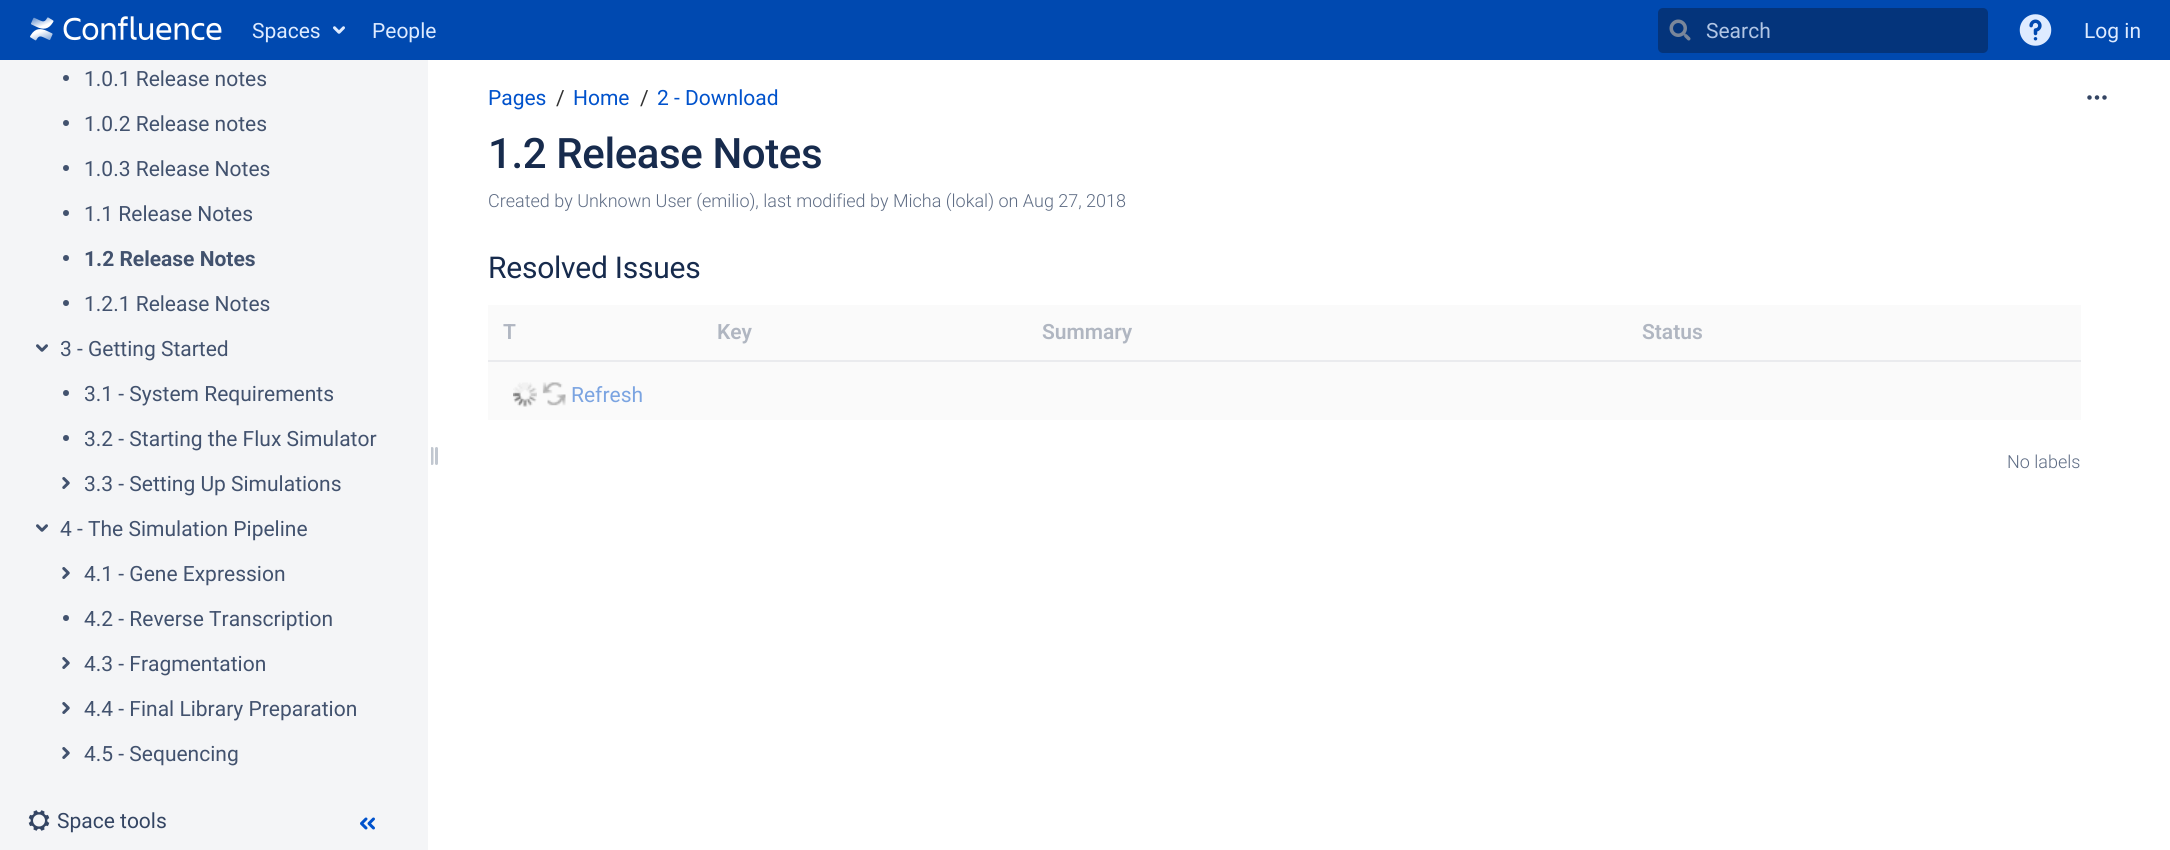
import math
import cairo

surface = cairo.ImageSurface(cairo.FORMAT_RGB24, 2170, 850)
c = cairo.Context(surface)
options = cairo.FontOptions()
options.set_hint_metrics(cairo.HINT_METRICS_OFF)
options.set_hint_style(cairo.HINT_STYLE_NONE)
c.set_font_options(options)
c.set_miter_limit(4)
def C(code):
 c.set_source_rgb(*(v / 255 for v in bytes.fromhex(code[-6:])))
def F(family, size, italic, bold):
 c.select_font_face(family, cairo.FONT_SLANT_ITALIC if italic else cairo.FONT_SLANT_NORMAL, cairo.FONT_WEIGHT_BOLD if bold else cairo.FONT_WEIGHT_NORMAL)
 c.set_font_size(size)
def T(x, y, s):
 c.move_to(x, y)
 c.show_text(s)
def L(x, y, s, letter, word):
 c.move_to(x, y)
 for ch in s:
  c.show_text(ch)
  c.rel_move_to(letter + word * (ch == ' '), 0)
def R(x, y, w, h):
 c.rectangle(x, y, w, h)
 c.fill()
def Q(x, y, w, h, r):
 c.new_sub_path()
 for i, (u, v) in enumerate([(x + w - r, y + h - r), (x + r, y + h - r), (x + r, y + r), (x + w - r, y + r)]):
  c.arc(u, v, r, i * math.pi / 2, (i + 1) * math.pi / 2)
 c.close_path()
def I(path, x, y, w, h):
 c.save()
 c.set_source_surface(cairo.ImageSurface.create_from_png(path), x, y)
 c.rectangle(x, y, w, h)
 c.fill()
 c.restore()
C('f4f5f7')
c.paint()
C('0049b0')
R(0,0,2170,60)
I('1.png',30,16,192,25)
F('Roboto',21,0,0)
C('deebff')
T(252,38,'Spaces')
I('2.png',333,26,12,8)
T(372,38,'People')
C('04347b')
Q(1658,8,330,45,5)
c.fill()
I('3.png',1669,19,22,22)
C('b2c6e5')
T(1706,38,'Search')
I('4.png',2019,14,33,32)
C('deebff')
T(2084,38,'Log in')
C('42526e')
c.new_path()
c.arc(66,78,3,0,2 * math.pi)
c.fill()
T(84,86,'1.0.1 Release notes')
c.new_path()
c.arc(66,123,3,0,2 * math.pi)
c.fill()
T(84,131,'1.0.2 Release notes')
c.new_path()
c.arc(66,168,3,0,2 * math.pi)
c.fill()
T(84,176,'1.0.3 Release Notes')
c.new_path()
c.arc(66,213,3,0,2 * math.pi)
c.fill()
T(84,221,'1.1 Release Notes')
c.new_path()
c.arc(66,258,3,0,2 * math.pi)
c.fill()
F('Roboto',21,0,1)
T(84,266,'1.2 Release Notes')
c.new_path()
c.arc(66,303,3,0,2 * math.pi)
c.fill()
F('Roboto',21,0,0)
T(84,311,'1.2.1 Release Notes')
I('5.png',36,344,12,8)
T(60,356,'3 - Getting Started')
c.new_path()
c.arc(66,393,3,0,2 * math.pi)
c.fill()
T(84,401,'3.1 - System Requirements')
c.new_path()
c.arc(66,438,3,0,2 * math.pi)
c.fill()
T(84,446,'3.2 - Starting the Flux Simulator')
I('6.png',62,477,8,12)
T(84,491,'3.3 - Setting Up Simulations')
I('5.png',36,524,12,8)
T(60,536,'4 - The Simulation Pipeline')
I('6.png',62,567,8,12)
T(84,581,'4.1 - Gene Expression')
c.new_path()
c.arc(66,618,3,0,2 * math.pi)
c.fill()
T(84,626,'4.2 - Reverse Transcription')
I('6.png',62,657,8,12)
T(84,671,'4.3 - Fragmentation')
I('6.png',62,702,8,12)
T(84,716,'4.4 - Final Library Preparation')
I('6.png',62,747,8,12)
T(84,761,'4.5 - Sequencing')
C('ffffff')
R(428,60,1742,790)
I('7.png',431,447,7,18)
I('8.png',28,810,22,21)
C('344563')
T(57,828,'Space tools')
I('9.png',360,817,15,13)
C('fafafa')
R(488,305,1593,115)
C('0052cc')
T(488,105,'Pages')
C('333333')
T(556,105,'/')
C('0052cc')
T(573,105,'Home')
C('333333')
T(640,105,'/')
C('0052cc')
T(657,105,'2 - Download')
F('Roboto Medium',42,0,0)
C('172b4d')
L(488,168,'1.2 Release Notes',-.4,0)
I('10.png',2087,95,20,5)
F('Roboto Light',18,0,0)
C('5e6c84')
T(488,207,'Created by Unknown User (emilio), last modified by Micha (lokal) on Aug 27, 2018')
F('Roboto',30,0,0)
C('172b4d')
L(488,278,'Resolved Issues',-.25,0)
F('Roboto SemiBold',21,0,0)
C('b0b6c1')
T(503,339,'T')
T(717,339,'Key')
T(1042,339,'Summary')
C('eaebee')
R(488,360,1593,2)
C('b0b6c1')
T(1642,339,'Status')
I('11.png',513,382,24,25)
I('12.png',542,382,24,24)
F('Roboto',21,0,0)
C('7ba4e1')
T(571,402,'Refresh')
F('Roboto Light',18,0,0)
C('5e6c84')
T(2007,468,'No labels')
surface.write_to_png('o.png')
